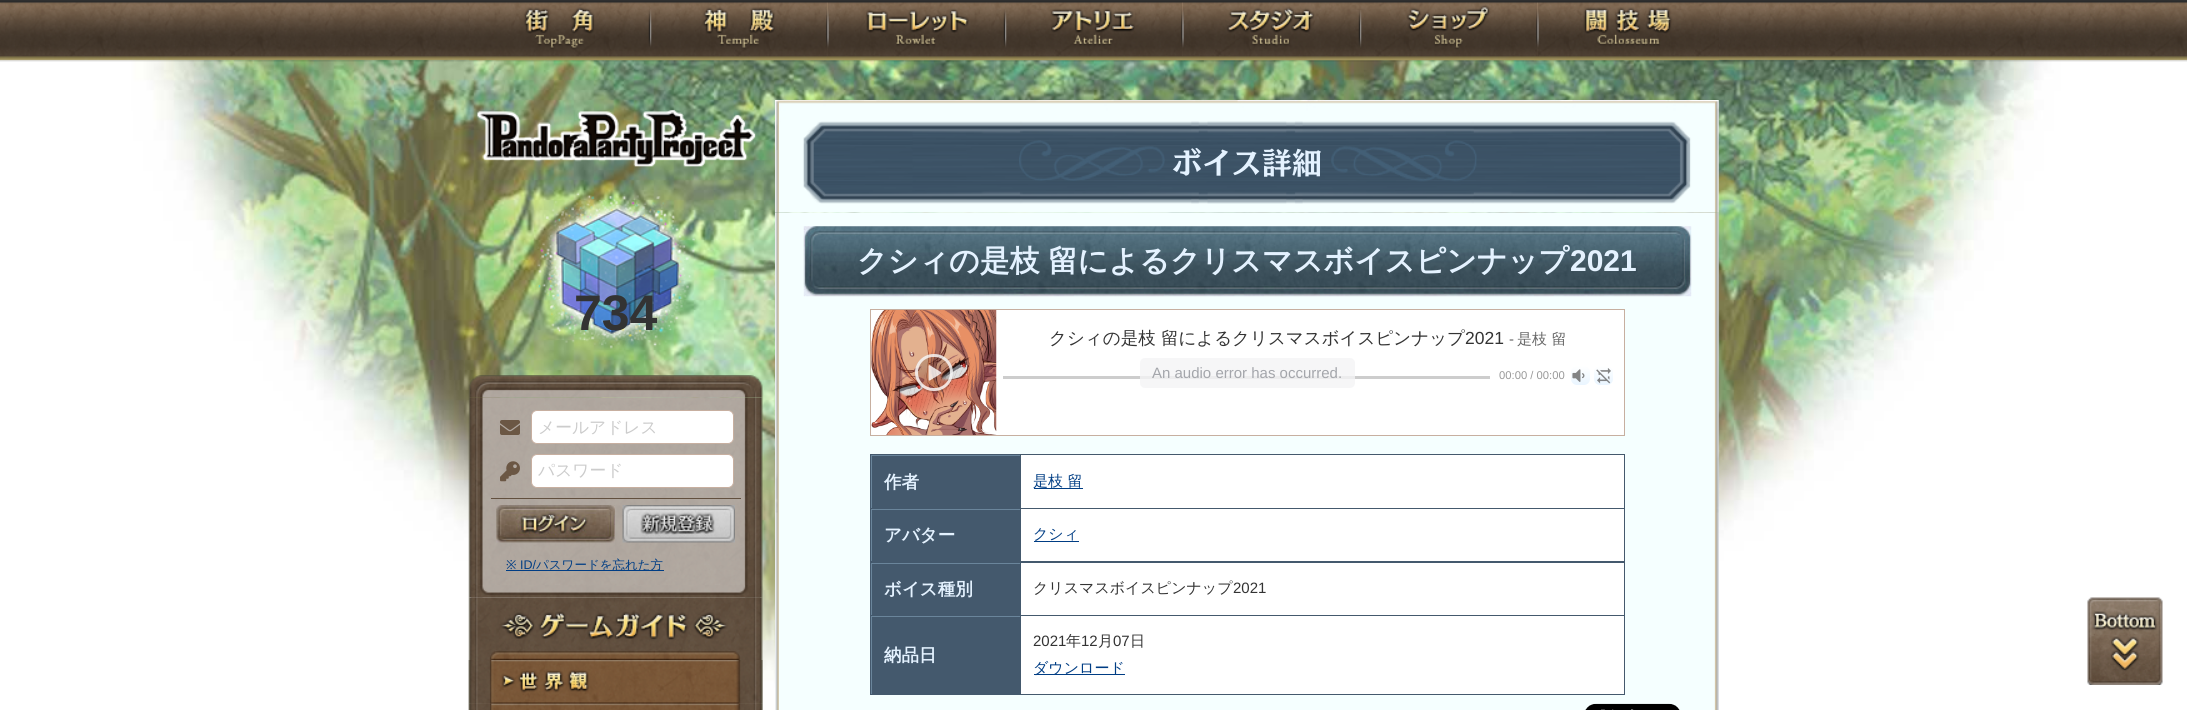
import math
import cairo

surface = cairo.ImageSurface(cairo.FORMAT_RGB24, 2187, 710)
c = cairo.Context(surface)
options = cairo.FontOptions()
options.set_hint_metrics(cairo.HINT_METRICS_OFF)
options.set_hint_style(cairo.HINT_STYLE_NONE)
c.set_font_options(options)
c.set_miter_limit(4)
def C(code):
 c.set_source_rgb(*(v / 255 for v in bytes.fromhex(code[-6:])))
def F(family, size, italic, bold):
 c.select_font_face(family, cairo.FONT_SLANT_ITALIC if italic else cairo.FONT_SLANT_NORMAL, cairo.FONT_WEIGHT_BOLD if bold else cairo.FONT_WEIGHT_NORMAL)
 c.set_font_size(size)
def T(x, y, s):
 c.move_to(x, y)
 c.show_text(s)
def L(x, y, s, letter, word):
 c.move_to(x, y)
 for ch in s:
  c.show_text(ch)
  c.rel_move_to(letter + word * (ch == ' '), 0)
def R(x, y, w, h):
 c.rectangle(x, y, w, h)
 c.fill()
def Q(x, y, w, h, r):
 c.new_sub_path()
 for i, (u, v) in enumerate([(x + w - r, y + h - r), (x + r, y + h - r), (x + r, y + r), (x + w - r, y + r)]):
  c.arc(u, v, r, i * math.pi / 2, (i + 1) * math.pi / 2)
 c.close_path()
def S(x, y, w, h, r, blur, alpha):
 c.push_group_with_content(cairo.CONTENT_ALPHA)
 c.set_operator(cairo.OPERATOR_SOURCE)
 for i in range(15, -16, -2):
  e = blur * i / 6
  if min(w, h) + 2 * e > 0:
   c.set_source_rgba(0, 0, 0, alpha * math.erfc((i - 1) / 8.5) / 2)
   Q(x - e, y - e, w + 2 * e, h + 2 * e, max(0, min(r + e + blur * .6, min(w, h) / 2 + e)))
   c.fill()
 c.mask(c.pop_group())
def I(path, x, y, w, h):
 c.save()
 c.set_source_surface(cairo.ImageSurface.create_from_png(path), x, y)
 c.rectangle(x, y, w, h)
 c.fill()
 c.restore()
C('ffffff')
c.paint()
I('1.png',131,59,1930,651)
I('2.png',0,0,2187,62)
I('3.png',469,59,181,2)
I('4.png',469,2,181,59)
I('5.png',650,2,178,59)
I('6.png',650,2,178,59)
I('7.png',827,2,178,59)
I('8.png',827,2,178,59)
I('9.png',1005,2,178,59)
I('10.png',1005,2,178,59)
I('11.png',1182,2,178,59)
I('12.png',1182,2,178,59)
I('13.png',1360,2,178,59)
I('14.png',1360,2,178,59)
I('15.png',1537,2,182,59)
I('16.png',1537,2,182,59)
I('17.png',477,109,279,58)
I('18.png',468,375,295,23)
I('19.png',468,397,295,201)
I('20.png',536,192,159,157)
F('Liberation Sans',50,0,1)
C('333333')
T(574,330,'734')
I('21.png',500,420,20,15)
C('ffffff')
Q(531.5,410.5,202,33,5.5)
c.fill_preserve()
C('c7afa0')
c.set_line_width(1)
c.stroke()
F('WenQuanYi Zen Hei Medium',16.75,0,0)
C('cccccc')
T(538,433,'メールアドレス')
I('22.png',500,461,20,21)
C('ffffff')
Q(531.5,454.5,202,33,5.5)
c.fill_preserve()
C('c7afa0')
c.stroke()
C('cccccc')
T(538,476,'パスワード')
C('62503f')
R(491,498,250,1)
I('23.png',496,505,119,38)
I('24.png',622,505,113,38)
I('25.png',471,585,289,13)
F('Noto Sans',12.5,0,0)
C('003d84')
T(506,569,'※')
R(506,570,158,1)
F('Liberation Sans',12.5,0,0)
T(520,569,'ID/')
F('WenQuanYi Zen Hei Medium',12.5,0,0)
T(536,569,'パスワードを忘れた方')
I('26.png',468,597,295,63)
I('27.png',468,660,295,44)
I('29.png',468,703,295,7)
I('28.png',468,660,295,44)
I('30.png',468,703,295,7)
I('34.png',775,212,944,498)
I('31.png',775,100,944,113)
I('32.png',1019,140,146,41)
F('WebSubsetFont',30,0,1)
C('e4f2ff')
T(1172,174,'ボイス詳細')
I('33.png',1331,140,146,42)
I('35.png',803,226,889,71)
F('WenQuanYi Zen Hei',30,0,1)
L(857,271,'クシィの是枝 留によるクリスマスボイスピンナップ',0,-1)
F('Liberation Sans',30,0,1)
T(1570,271,'2021')
c.rectangle(870.5,309.5,754,126)
C('c7afa0')
c.stroke()
C('ffffff')
Q(871,310,753,125,2.5)
c.fill()
I('36.png',871,310,126,125)
c.save()
c.set_fill_rule(cairo.FILL_RULE_EVEN_ODD)
c.new_path()
c.move_to(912,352)
c.line_to(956,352)
c.line_to(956,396)
c.line_to(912,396)
c.close_path()
c.move_to(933.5,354)
c.line_to(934.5,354)
c.curve_to(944.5,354,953,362.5,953,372.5)
c.curve_to(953,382.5,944.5,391,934.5,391)
c.line_to(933.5,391)
c.curve_to(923.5,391,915,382.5,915,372.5)
c.curve_to(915,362.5,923.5,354,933.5,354)
c.close_path()
c.clip()
C('000000')
S(915,355,38,38,19,.5,.16)
c.restore()
c.set_source_rgba(0,0,0,0.16)
Q(915,354,38,37,18.5)
c.fill()
Q(916.5,355.5,35,34,17)
c.set_source_rgba(1,1,1,0.8)
c.set_line_width(3)
c.stroke()
I('37.png',928,365,14,16)
F('WenQuanYi Zen Hei Medium',17.5,0,0)
C('333333')
T(1049,344,'クシィの是枝 留によるクリスマスボイスピンナップ')
F('Liberation Sans',17.5,0,0)
T(1465,344,'2021')
F('Liberation Sans',15,0,0)
C('666666')
T(1509,344,'-')
F('WenQuanYi Zen Hei Medium',15,0,0)
T(1517,344,'是枝 留')
C('cdcdcd')
R(1003,376,487,3)
F('Liberation Sans',11.25,0,0)
C('999999')
T(1499,379,'00:00 / 00:00')
gradient = cairo.LinearGradient(1581,366,1581,385)
gradient.add_color_stop_rgba(0,1,1,1,1)
gradient.add_color_stop_rgba(1,0.914,0.961,1,1)
c.set_source(gradient)
Q(1571,366,19,19,6)
c.fill()
I('38.png',1572,369,13,13)
gradient = cairo.LinearGradient(1603,366,1603,385)
gradient.add_color_stop_rgba(0,1,1,1,1)
gradient.add_color_stop_rgba(1,0.914,0.961,1,1)
c.set_source(gradient)
Q(1594,366,19,19,6)
c.fill()
I('39.png',1596,368,15,16)
c.set_source_rgba(0.957,0.957,0.961,0.8)
Q(1140,358,215,30,5)
c.fill()
F('Liberation Sans',15,0,0)
C('a4a6ab')
T(1152,378,'An audio error has occurred.')
C('44596d')
R(870,454,755,241)
C('6a859b')
R(871,455,149,1)
R(871,455,1,53)
F('WenQuanYi Zen Hei',17.5,0,1)
C('e4f2ff')
T(884,488,'作者')
C('ffffff')
R(1021,455,603,53)
C('003d84')
R(1034,488,49,1)
F('WenQuanYi Zen Hei Medium',15,0,0)
T(1033,486,'是枝 留')
C('6a859b')
R(871,509,149,1)
R(871,509,1,52)
F('WenQuanYi Zen Hei',17.5,0,1)
C('e4f2ff')
T(884,541,'アバター')
C('ffffff')
R(1021,509,603,52)
F('WenQuanYi Zen Hei Medium',15,0,0)
C('003d84')
T(1033,539,'クシィ')
R(1034,541,45,1)
C('6a859b')
R(871,563,149,1)
R(871,563,1,52)
F('WenQuanYi Zen Hei',17.5,0,1)
C('e4f2ff')
T(884,595,'ボイス種別')
C('ffffff')
R(1021,563,603,52)
F('WenQuanYi Zen Hei Medium',15,0,0)
C('333333')
T(1033,593,'クリスマスボイスピンナップ')
F('Liberation Sans',15,0,0)
T(1233,593,'2021')
C('6a859b')
R(871,616,149,1)
R(871,616,1,78)
F('WenQuanYi Zen Hei',17.5,0,1)
C('e4f2ff')
T(884,661,'納品日')
C('ffffff')
R(1021,616,603,78)
F('Liberation Sans',15,0,0)
C('333333')
T(1033,646,'2021')
F('WenQuanYi Zen Hei Medium',15,0,0)
T(1066,646,'年')
F('Liberation Sans',15,0,0)
T(1081,646,'12')
F('WenQuanYi Zen Hei Medium',15,0,0)
T(1098,646,'月')
F('Liberation Sans',15,0,0)
T(1113,646,'07')
F('WenQuanYi Zen Hei Medium',15,0,0)
T(1130,646,'日')
C('003d84')
R(1034,674,91,1)
T(1033,673,'ダウンロード')
I('40.png',1585,703,95,7)
I('41.png',2087,597,76,88)
surface.write_to_png('o.png')
